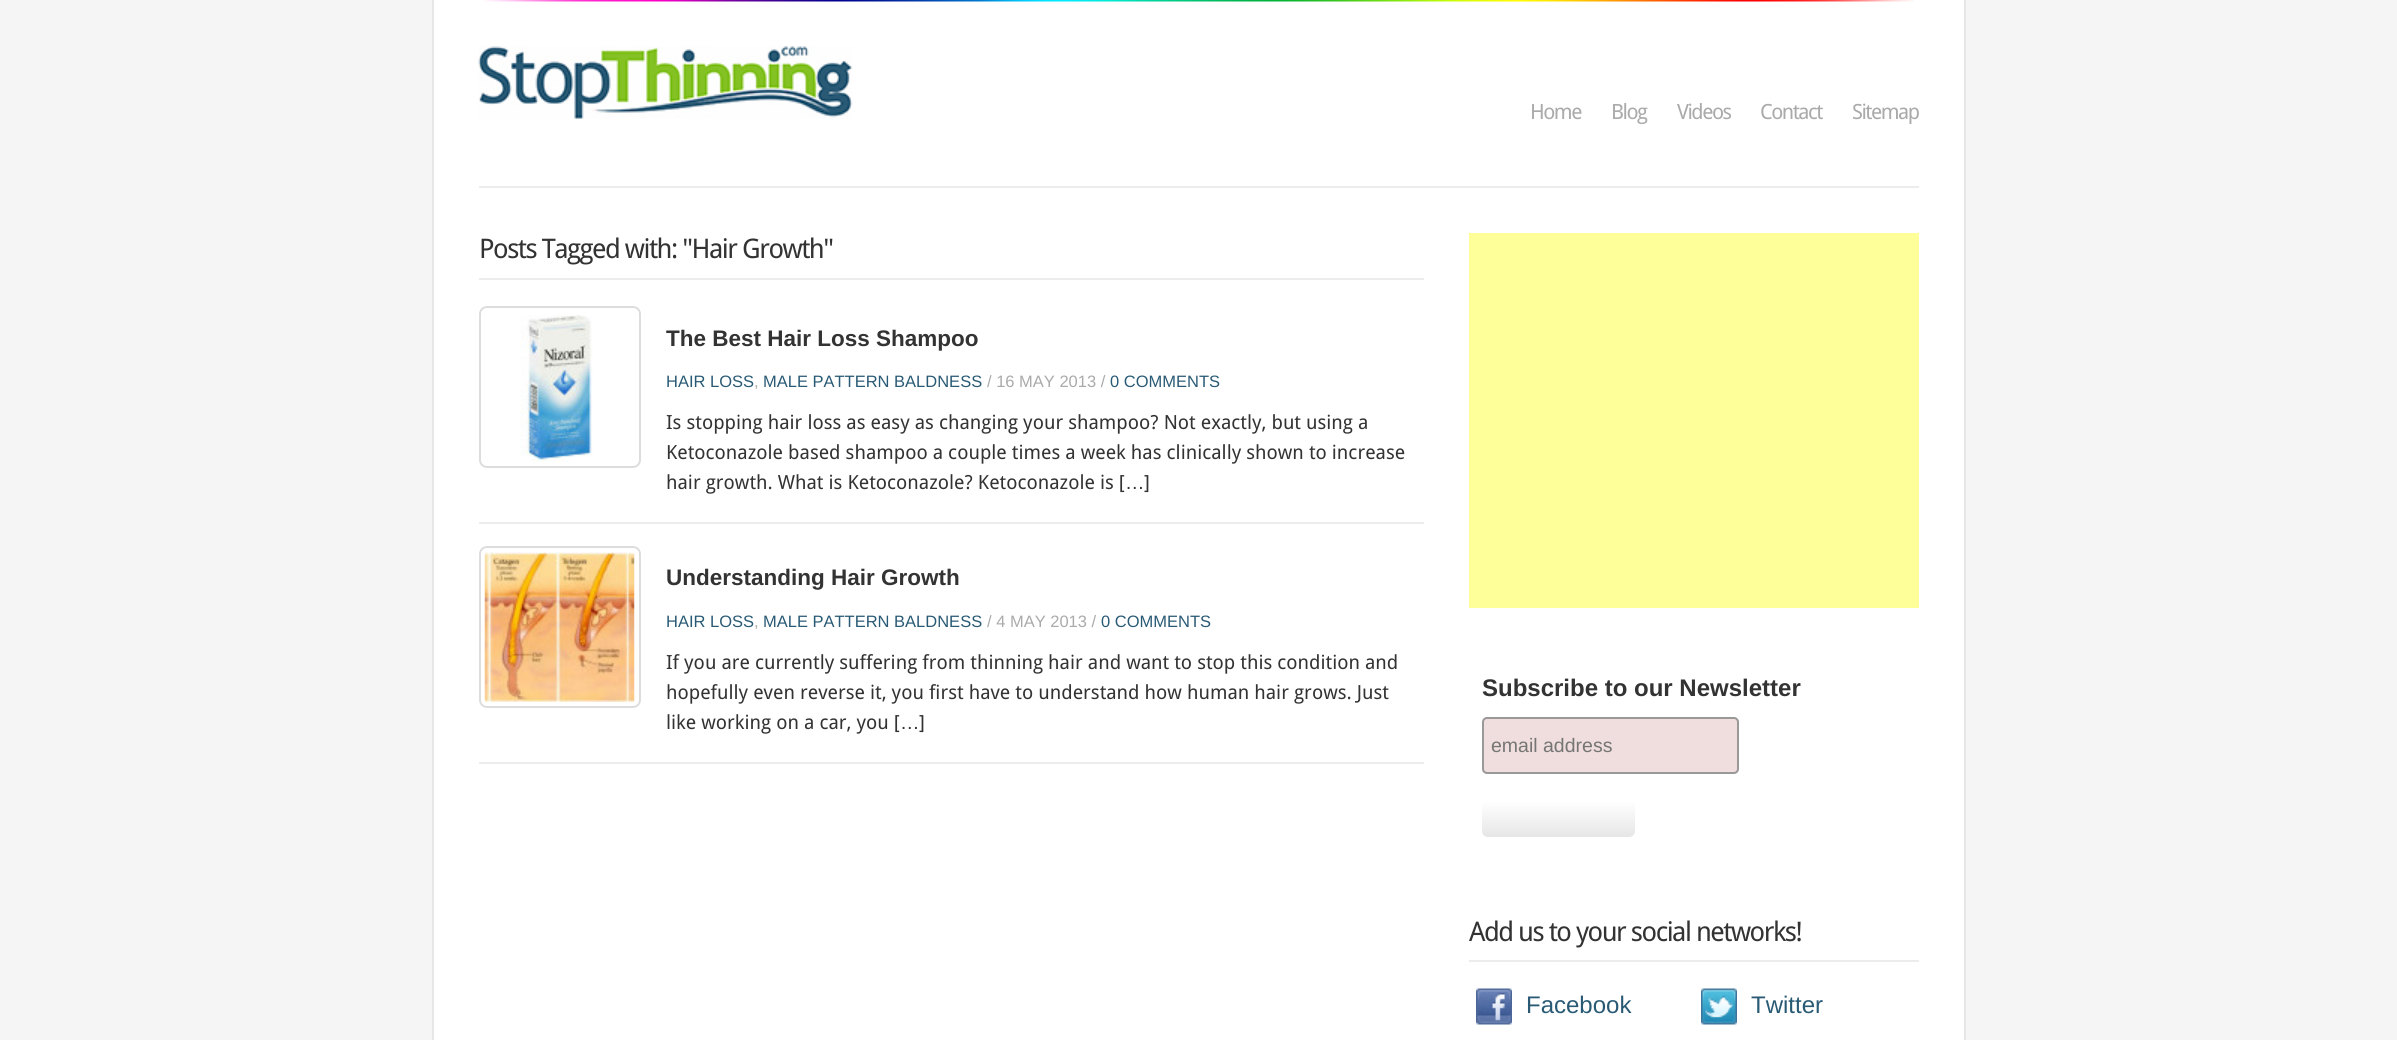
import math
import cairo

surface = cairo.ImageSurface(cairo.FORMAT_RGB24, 2397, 1040)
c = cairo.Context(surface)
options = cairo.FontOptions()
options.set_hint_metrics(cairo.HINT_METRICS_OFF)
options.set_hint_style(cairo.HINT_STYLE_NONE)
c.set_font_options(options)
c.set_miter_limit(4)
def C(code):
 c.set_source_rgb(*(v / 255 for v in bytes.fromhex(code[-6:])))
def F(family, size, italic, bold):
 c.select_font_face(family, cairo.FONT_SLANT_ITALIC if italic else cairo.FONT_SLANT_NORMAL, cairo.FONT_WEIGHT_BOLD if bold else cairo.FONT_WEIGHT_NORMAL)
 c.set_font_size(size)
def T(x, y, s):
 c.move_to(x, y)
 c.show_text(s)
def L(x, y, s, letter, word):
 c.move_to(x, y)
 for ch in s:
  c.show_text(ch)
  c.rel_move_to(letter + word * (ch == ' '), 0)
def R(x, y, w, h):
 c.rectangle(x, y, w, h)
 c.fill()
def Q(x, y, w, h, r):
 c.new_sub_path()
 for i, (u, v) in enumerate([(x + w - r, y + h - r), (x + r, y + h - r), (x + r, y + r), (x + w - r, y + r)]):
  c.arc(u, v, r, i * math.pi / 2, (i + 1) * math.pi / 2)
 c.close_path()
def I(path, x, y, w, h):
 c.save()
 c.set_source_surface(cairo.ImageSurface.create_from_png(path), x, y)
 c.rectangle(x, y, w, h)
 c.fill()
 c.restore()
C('f5f5f5')
c.paint()
C('ffffff')
R(434,0,1530,1040)
I('1.png',484,0,1430,2)
C('e7e7e7')
R(1964,0,2,1040)
R(432,0,2,1040)
C('ececec')
R(479,186,1440,2)
I('2.png',478,46,375,73)
F('Droid Sans',21,0,0)
C('aaaaaa')
L(1530,119,'Home',-1.5,0)
L(1611,119,'Blog',-1.5,0)
L(1677,119,'Videos',-1.5,0)
L(1760,119,'Contact',-1.5,0)
L(1852,119,'Sitemap',-1.5,0)
C('ececec')
R(479,278,945,2)
F('Droid Sans',27,0,0)
C('333333')
L(479,258,'Posts Tagged with: "Hair Growth"',-1.5,0)
C('ececec')
R(479,522,945,2)
Q(480,307,160,160,7)
C('dddddd')
c.stroke()
I('3.png',520,315,73,147)
F('Liberation Sans',22.5,0,1)
C('333333')
T(666,346,'The Best Hair Loss Shampoo')
F('Liberation Sans',16.5,0,0)
C('295a75')
T(666,387,'HAIR LOSS')
C('aaaaaa')
T(754,387,',')
C('295a75')
T(763,387,'MALE PATTERN BALDNESS')
C('aaaaaa')
T(987,387,'/ 16 MAY 2013 /')
C('295a75')
T(1110,387,'0 COMMENTS')
F('Droid Sans',19.5,0,0)
C('333333')
T(666,429,'Is stopping hair loss as easy as changing your shampoo? Not exactly, but using a')
T(666,459,'Ketoconazole based shampoo a couple times a week has clinically shown to increase')
T(666,489,'hair growth. What is Ketoconazole? Ketoconazole is [')
F('Liberation Sans',19.5,0,0)
T(1125,489,'…')
F('Droid Sans',19.5,0,0)
T(1144,489,']')
C('ececec')
R(479,762,945,2)
Q(480,547,160,160,7)
C('dddddd')
c.stroke()
I('4.png',484,552,151,150)
F('Liberation Sans',22.5,0,1)
C('333333')
T(666,585,'Understanding Hair Growth')
F('Liberation Sans',16.5,0,0)
C('295a75')
T(666,627,'HAIR LOSS')
C('aaaaaa')
T(754,627,',')
C('295a75')
T(763,627,'MALE PATTERN BALDNESS')
C('aaaaaa')
T(987,627,'/ 4 MAY 2013 /')
C('295a75')
T(1101,627,'0 COMMENTS')
F('Droid Sans',19.5,0,0)
C('333333')
T(666,669,'If you are currently suffering from thinning hair and want to stop this condition and')
T(666,699,'hopefully even reverse it, you first have to understand how human hair grows. Just')
T(666,729,'like working on a car, you [')
F('Liberation Sans',19.5,0,0)
T(900,729,'…')
F('Droid Sans',19.5,0,0)
T(919,729,']')
C('ffff99')
R(1469,233,450,375)
F('Liberation Sans',24,0,1)
C('333333')
T(1482,696,'Subscribe to our Newsletter')
C('f0dddd')
Q(1483,718,255,55,4)
c.fill_preserve()
C('999999')
c.stroke()
F('Liberation Sans',19.5,0,0)
C('757575')
T(1491,752,'email address')
gradient = cairo.LinearGradient(1559,789,1559,837)
gradient.add_color_stop_rgba(0,1,1,1,1)
gradient.add_color_stop_rgba(.25,1,1,1,1)
gradient.add_color_stop_rgba(1,0.902,0.902,0.902,1)
c.set_source(gradient)
Q(1482,789,153,48,6)
c.fill()
C('ececec')
R(1469,960,450,2)
F('Droid Sans',27,0,0)
C('333333')
L(1469,941,'Add us to your social networks!',-1.5,0)
I('5.png',1476,988,36,37)
F('Liberation Sans',24,0,0)
C('295a75')
T(1526,1013,'Facebook')
I('6.png',1701,988,36,37)
T(1751,1013,'Twitter')
surface.write_to_png('o.png')
